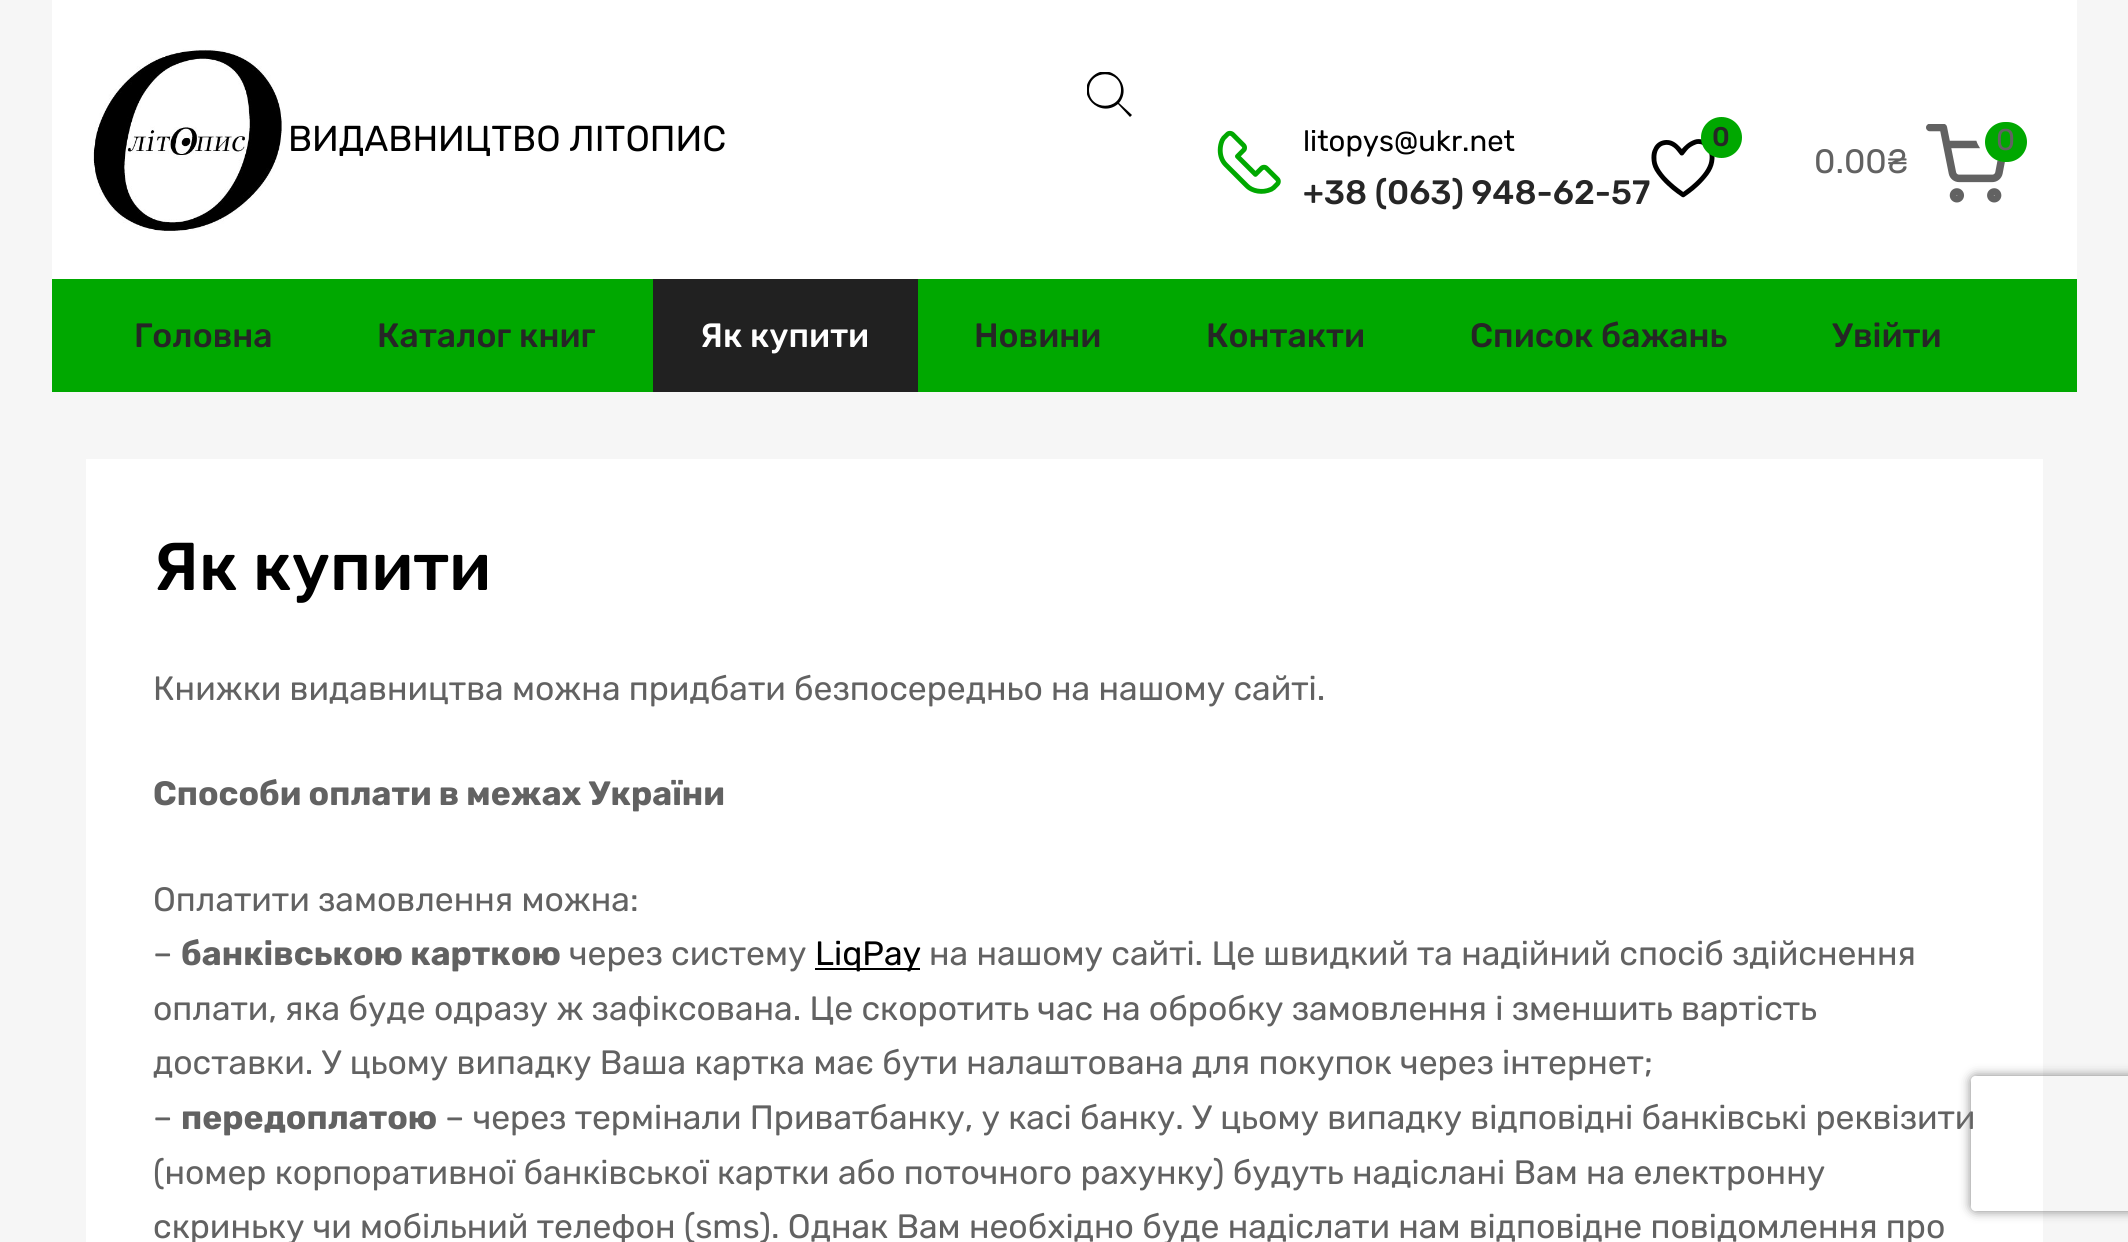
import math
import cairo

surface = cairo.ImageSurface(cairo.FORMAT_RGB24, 2128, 1242)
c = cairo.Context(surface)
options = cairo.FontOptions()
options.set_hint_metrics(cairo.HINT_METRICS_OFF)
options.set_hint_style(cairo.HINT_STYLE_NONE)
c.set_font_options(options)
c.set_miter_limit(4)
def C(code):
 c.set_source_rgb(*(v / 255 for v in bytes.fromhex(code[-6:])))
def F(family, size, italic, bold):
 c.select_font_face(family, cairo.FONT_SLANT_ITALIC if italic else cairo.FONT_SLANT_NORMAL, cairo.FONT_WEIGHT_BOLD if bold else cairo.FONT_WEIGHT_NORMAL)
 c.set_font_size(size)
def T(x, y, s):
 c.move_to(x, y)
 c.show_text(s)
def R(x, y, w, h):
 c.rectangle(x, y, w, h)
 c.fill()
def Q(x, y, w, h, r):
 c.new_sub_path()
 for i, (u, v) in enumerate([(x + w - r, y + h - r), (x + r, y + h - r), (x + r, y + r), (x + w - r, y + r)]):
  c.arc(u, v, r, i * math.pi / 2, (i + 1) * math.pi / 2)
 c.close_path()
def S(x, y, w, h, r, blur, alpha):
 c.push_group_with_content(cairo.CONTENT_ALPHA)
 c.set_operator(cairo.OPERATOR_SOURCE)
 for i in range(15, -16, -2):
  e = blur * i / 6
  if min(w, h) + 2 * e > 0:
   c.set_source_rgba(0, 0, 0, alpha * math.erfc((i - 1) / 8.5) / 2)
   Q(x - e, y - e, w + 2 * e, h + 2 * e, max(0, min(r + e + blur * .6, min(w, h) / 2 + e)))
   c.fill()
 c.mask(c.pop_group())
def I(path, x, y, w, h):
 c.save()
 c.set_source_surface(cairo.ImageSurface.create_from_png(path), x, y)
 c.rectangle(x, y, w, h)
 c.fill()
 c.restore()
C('f6f6f6')
c.paint()
C('ffffff')
R(52,0,2025,279)
I('1.png',93,49,189,182)
F('Rubik',36,0,0)
C('000000')
T(288,151,'ВИДАВНИЦТВО ЛІТОПИС')
c.save()
c.rectangle(1087,72,45,45)
c.clip()
c.new_path()
c.move_to(1132,115)
c.line_to(1119,103)
c.curve_to(1134,85,1109,60,1092,77)
c.curve_to(1075,94,1100,119,1118,104)
c.line_to(1130,117)
c.close_path()
c.move_to(1089,90)
c.curve_to(1089,69,1121,69,1121,90)
c.curve_to(1121,111,1089,111,1089,90)
c.close_path()
c.fill()
c.restore()
I('2.png',1217,130,64,64)
F('Rubik',29.25,0,0)
T(1303,151,'litopys@ukr.net')
F('Rubik Medium',33.75,0,0)
C('262626')
T(1303,204,'+38 (063) 948-62-57')
I('3.png',1651,139,64,59)
C('00a800')
c.arc(1721.5,137.5,20.5,0,2 * math.pi)
c.fill()
F('Rubik Medium',27,0,0)
C('262626')
T(1712,146,'0')
I('4.png',1926,124,79,79)
C('00a800')
Q(1985,122,42,40,20)
c.fill()
F('Rubik',30,0,0)
C('626262')
T(1996,150,'0')
F('Rubik',33.75,0,0)
T(1814,173,'0.00₴')
C('00a800')
R(52,279,2025,113)
F('Rubik Medium',33.75,0,0)
C('262626')
T(134,347,'Головна')
T(377,347,'Каталог книг')
C('212121')
R(653,279,265,113)
C('ffffff')
T(700,347,'Як купити')
C('262626')
T(974,347,'Новини')
T(1206,347,'Контакти')
T(1470,347,'Список бажань')
T(1832,347,'Увійти')
C('ffffff')
R(86,459,1957,783)
F('Rubik Medium',67.5,0,0)
C('000000')
T(153,590,'Як купити')
F('Rubik',33.75,0,0)
C('626262')
T(153,700,'Книжки видавництва можна придбати безпосередньо на нашому сайті.')
F('Rubik',33.75,0,1)
T(153,805,'Способи оплати в межах України')
F('Rubik',33.75,0,0)
T(153,911,'Оплатити замовлення можна:')
T(153,965,'–')
F('Rubik',33.75,0,1)
T(181,965,'банківською карткою')
F('Rubik',33.75,0,0)
T(569,965,'через систему')
C('000000')
R(815,968,105,2)
T(815,965,'LiqPay')
C('626262')
T(929,965,'на нашому сайті. Це швидкий та надійний спосіб здійснення')
T(153,1020,'оплати, яка буде одразу ж зафіксована. Це скоротить час на обробку замовлення і зменшить вартість')
T(153,1074,'доставки. У цьому випадку Ваша картка має бути налаштована для покупок через інтернет;')
T(153,1129,'–')
F('Rubik',33.75,0,1)
T(181,1129,'передоплатою')
F('Rubik',33.75,0,0)
T(445,1129,'– через термінали Приватбанку, у касі банку. У цьому випадку відповідні банківські реквізити')
T(153,1184,'(номер корпоративної банківської картки або поточного рахунку) будуть надіслані Вам на електронну')
T(153,1238,'скриньку чи мобільний телефон (sms). Однак Вам необхідно буде надіслати нам відповідне повідомлення про')
c.save()
c.set_fill_rule(cairo.FILL_RULE_EVEN_ODD)
c.new_path()
c.move_to(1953,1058)
c.line_to(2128,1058)
c.line_to(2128,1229)
c.line_to(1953,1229)
c.close_path()
c.move_to(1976,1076)
c.line_to(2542,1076)
c.curve_to(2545,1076,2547,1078,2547,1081)
c.line_to(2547,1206)
c.curve_to(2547,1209,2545,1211,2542,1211)
c.line_to(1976,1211)
c.curve_to(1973,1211,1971,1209,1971,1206)
c.line_to(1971,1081)
c.curve_to(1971,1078,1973,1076,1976,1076)
c.close_path()
c.clip()
C('808080')
S(1971,1076,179,135,5,5.5,1)
c.restore()
surface.write_to_png('o.png')
